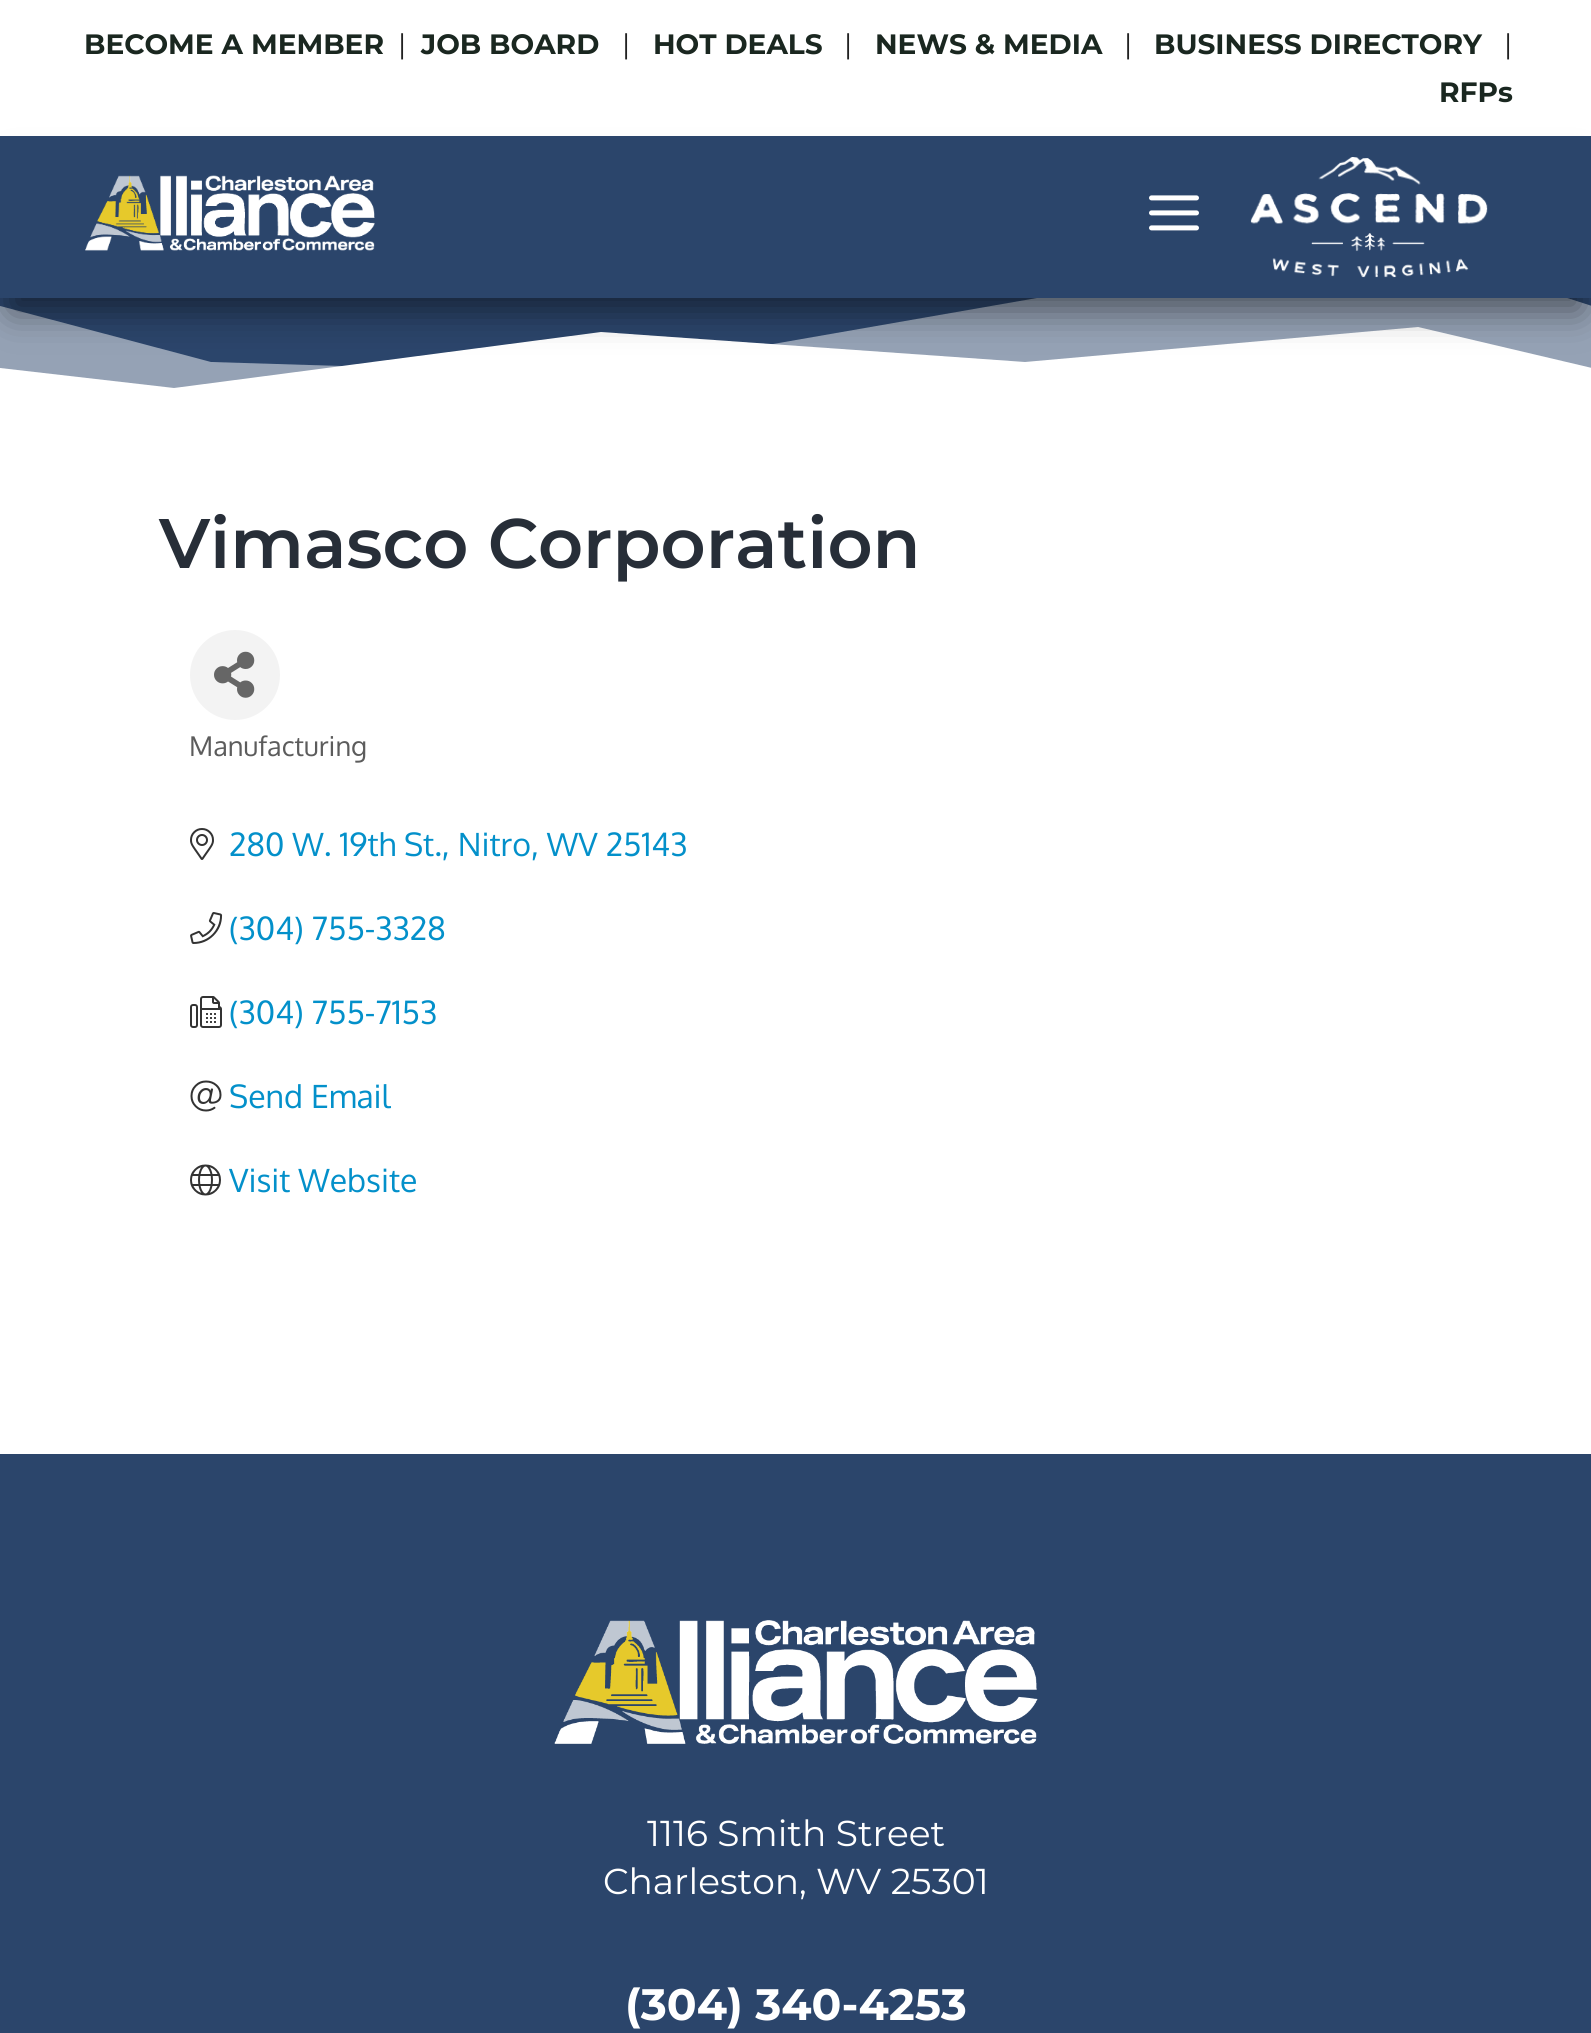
import math
import cairo

surface = cairo.ImageSurface(cairo.FORMAT_RGB24, 1591, 2033)
c = cairo.Context(surface)
options = cairo.FontOptions()
options.set_hint_metrics(cairo.HINT_METRICS_OFF)
options.set_hint_style(cairo.HINT_STYLE_NONE)
c.set_font_options(options)
c.set_miter_limit(4)
def C(code):
 c.set_source_rgb(*(v / 255 for v in bytes.fromhex(code[-6:])))
def F(family, size, italic, bold):
 c.select_font_face(family, cairo.FONT_SLANT_ITALIC if italic else cairo.FONT_SLANT_NORMAL, cairo.FONT_WEIGHT_BOLD if bold else cairo.FONT_WEIGHT_NORMAL)
 c.set_font_size(size)
def T(x, y, s):
 c.move_to(x, y)
 c.show_text(s)
def R(x, y, w, h):
 c.rectangle(x, y, w, h)
 c.fill()
def Q(x, y, w, h, r):
 c.new_sub_path()
 for i, (u, v) in enumerate([(x + w - r, y + h - r), (x + r, y + h - r), (x + r, y + r), (x + w - r, y + r)]):
  c.arc(u, v, r, i * math.pi / 2, (i + 1) * math.pi / 2)
 c.close_path()
def S(x, y, w, h, r, blur, alpha):
 c.push_group_with_content(cairo.CONTENT_ALPHA)
 c.set_operator(cairo.OPERATOR_SOURCE)
 for i in range(15, -16, -2):
  e = blur * i / 6
  if min(w, h) + 2 * e > 0:
   c.set_source_rgba(0, 0, 0, alpha * math.erfc((i - 1) / 8.5) / 2)
   Q(x - e, y - e, w + 2 * e, h + 2 * e, max(0, min(r + e + blur * .6, min(w, h) / 2 + e)))
   c.fill()
 c.mask(c.pop_group())
def I(path, x, y, w, h):
 c.save()
 c.set_source_surface(cairo.ImageSurface.create_from_png(path), x, y)
 c.rectangle(x, y, w, h)
 c.fill()
 c.restore()
C('ffffff')
c.paint()
F('Montserrat',28,0,1)
C('1a2720')
T(84,54,'BECOME A MEMBER')
F('Montserrat',28,0,0)
C('222222')
T(398,54,'|')
F('Montserrat',28,0,1)
C('1a2720')
T(421,54,'JOB BOARD')
F('Montserrat',28,0,0)
C('222222')
T(622,54,'|')
F('Montserrat',28,0,1)
C('1a2720')
T(653,54,'HOT DEALS')
F('Montserrat',28,0,0)
C('222222')
T(844,54,'|')
F('Montserrat',28,0,1)
C('1a2720')
T(875,54,'NEWS & MEDIA')
F('Montserrat',28,0,0)
C('222222')
T(1124,54,'|')
F('Montserrat',28,0,1)
C('1a2720')
T(1154,54,'BUSINESS DIRECTORY')
F('Montserrat',28,0,0)
C('222222')
T(1504,54,'|')
F('Montserrat',28,0,1)
C('1a2720')
T(1439,102,'RFPs')
C('2b456b')
R(0,298,1591,90)
c.set_source_rgba(1,1,1,0.5)
c.new_path()
c.move_to(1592,306)
c.line_to(1381,238)
c.line_to(601,374)
c.line_to(211,362)
c.line_to(0,306)
c.line_to(0,438)
c.line_to(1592,438)
c.close_path()
c.fill()
C('ffffff')
c.new_path()
c.move_to(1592,368)
c.line_to(1418,327)
c.line_to(1025,362)
c.line_to(601,332)
c.line_to(174,388)
c.line_to(0,368)
c.line_to(0,438)
c.line_to(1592,438)
c.close_path()
c.fill()
C('000000')
S(12,172,1568,138,0,18,.5)
C('2b456b')
R(0,136,1591,162)
I('1.png',85,175,290,76)
I('2.png',1149,195,50,36)
I('3.png',1250,157,238,121)
F('Montserrat SemiBold',70,0,0)
C('272e38')
T(159,568,'Vimasco Corporation')
C('f3f3f3')
c.new_path()
c.arc(235,675,45,0,2 * math.pi)
c.fill()
I('4.png',214,651,41,47)
F('Oxygen',27.25,0,0)
C('5c5c5c')
T(189,756,'Manufacturing')
I('5.png',190,828,24,32)
F('Oxygen',32,0,0)
C('0390ca')
T(229,856,'280 W. 19th St., Nitro, WV 25143')
I('6.png',190,912,33,32)
T(229,940,'(304) 755-3328')
I('7.png',190,996,32,32)
T(229,1024,'(304) 755-7153')
I('8.png',190,1080,32,32)
T(229,1108,'Send Email')
I('9.png',190,1164,31,32)
T(229,1192,'Visit Website')
C('2b456b')
R(0,1454,1591,579)
I('10.png',554,1620,484,124)
F('Montserrat',36,0,0)
C('ffffff')
T(647,1846,'1116 Smith Street')
T(603,1894,'Charleston, WV 25301')
F('Montserrat',44,0,1)
T(625,2020,'(304) 340-4253')
surface.write_to_png('o.png')
